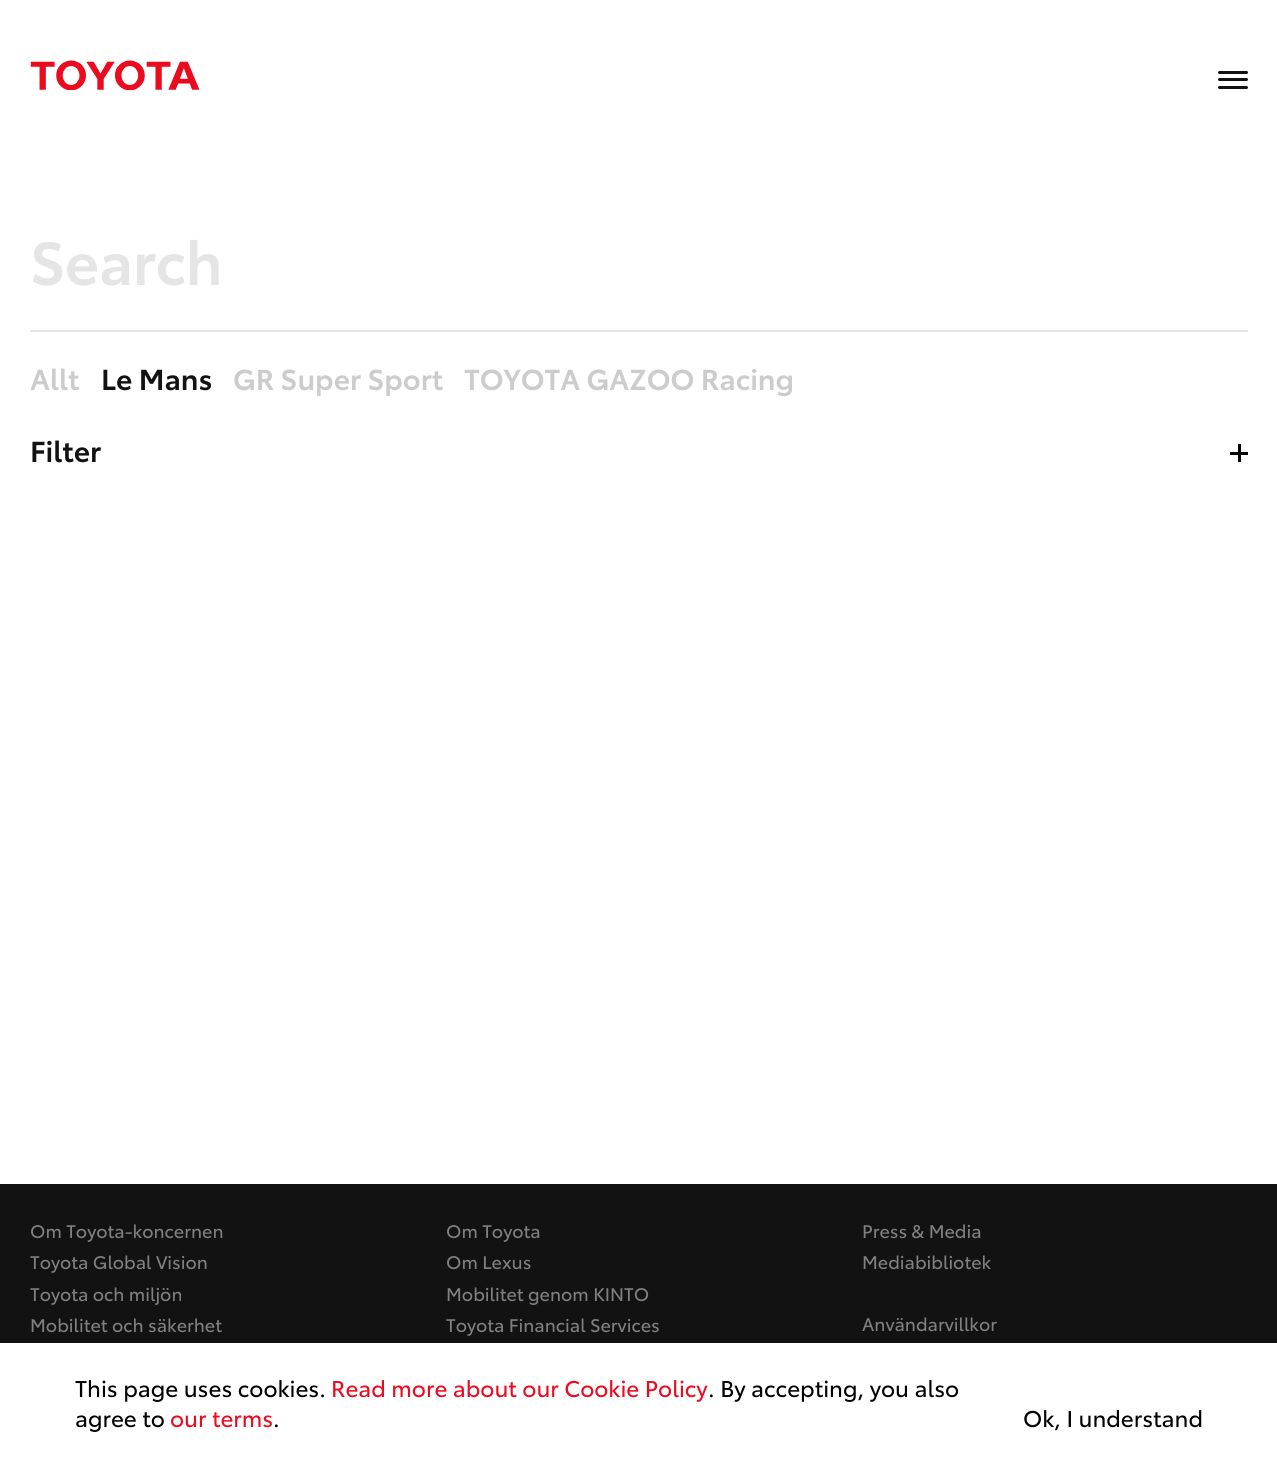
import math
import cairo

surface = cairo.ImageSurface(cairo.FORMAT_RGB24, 1277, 1462)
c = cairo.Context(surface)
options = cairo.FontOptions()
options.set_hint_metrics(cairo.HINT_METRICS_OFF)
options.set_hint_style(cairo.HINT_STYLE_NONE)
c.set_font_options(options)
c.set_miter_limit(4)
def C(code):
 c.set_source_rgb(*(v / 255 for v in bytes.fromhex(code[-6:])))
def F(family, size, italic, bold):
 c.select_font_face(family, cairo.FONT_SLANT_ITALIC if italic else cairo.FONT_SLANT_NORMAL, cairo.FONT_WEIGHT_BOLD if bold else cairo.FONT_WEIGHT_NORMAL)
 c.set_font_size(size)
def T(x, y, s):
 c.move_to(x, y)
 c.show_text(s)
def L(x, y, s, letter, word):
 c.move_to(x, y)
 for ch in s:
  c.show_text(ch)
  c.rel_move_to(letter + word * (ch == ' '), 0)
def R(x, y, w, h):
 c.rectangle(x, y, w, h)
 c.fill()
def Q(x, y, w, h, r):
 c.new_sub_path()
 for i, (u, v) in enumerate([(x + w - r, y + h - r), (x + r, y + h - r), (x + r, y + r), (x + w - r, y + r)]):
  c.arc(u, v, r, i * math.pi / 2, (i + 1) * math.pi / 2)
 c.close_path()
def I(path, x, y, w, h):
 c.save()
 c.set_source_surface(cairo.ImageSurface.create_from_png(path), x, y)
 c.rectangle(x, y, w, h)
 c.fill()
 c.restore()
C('ffffff')
c.paint()
I('1.png',30,60,170,30)
C('121212')
Q(1218,71,30,3,1.5)
c.fill()
Q(1218,78,30,3,1.5)
c.fill()
Q(1218,86,30,3,1.5)
c.fill()
C('e5e5e5')
R(30,330,1218,2)
F('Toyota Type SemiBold',60,0,0)
L(30,285,'Search',-.5,0)
F('Toyota Type SemiBold',28.5,0,0)
C('cccccc')
T(30,390,'Allt')
C('121212')
T(101,390,'Le Mans')
C('cccccc')
T(233,390,'GR Super Sport')
T(464,390,'TOYOTA GAZOO Racing')
C('121212')
T(30,462,'Filter')
C('000000')
R(1230,452,18,3)
R(1238,444,3,18)
C('121212')
R(0,1184,1277,159)
F('ToyotaType',18,0,0)
C('808080')
T(30,1238,'Om Toyota-koncernen')
T(30,1269,'Toyota Global Vision')
T(30,1301,'Toyota och miljön')
T(30,1332,'Mobilitet och säkerhet')
T(446,1238,'Om Toyota')
T(446,1269,'Om Lexus')
T(446,1301,'Mobilitet genom KINTO')
T(446,1332,'Toyota Financial Services')
T(862,1238,'Press & Media')
T(862,1269,'Mediabibliotek')
T(862,1331,'Användarvillkor')
F('ToyotaType',22.5,0,0)
C('000000')
T(75,1397,'This page uses cookies.')
C('eb0a1e')
T(331,1397,'Read more about our Cookie Policy')
C('000000')
T(708,1397,'. By accepting, you also')
T(75,1427,'agree to')
C('eb0a1e')
T(170,1427,'our terms')
C('000000')
T(273,1427,'.')
T(1023,1427,'Ok, I understand')
surface.write_to_png('o.png')
